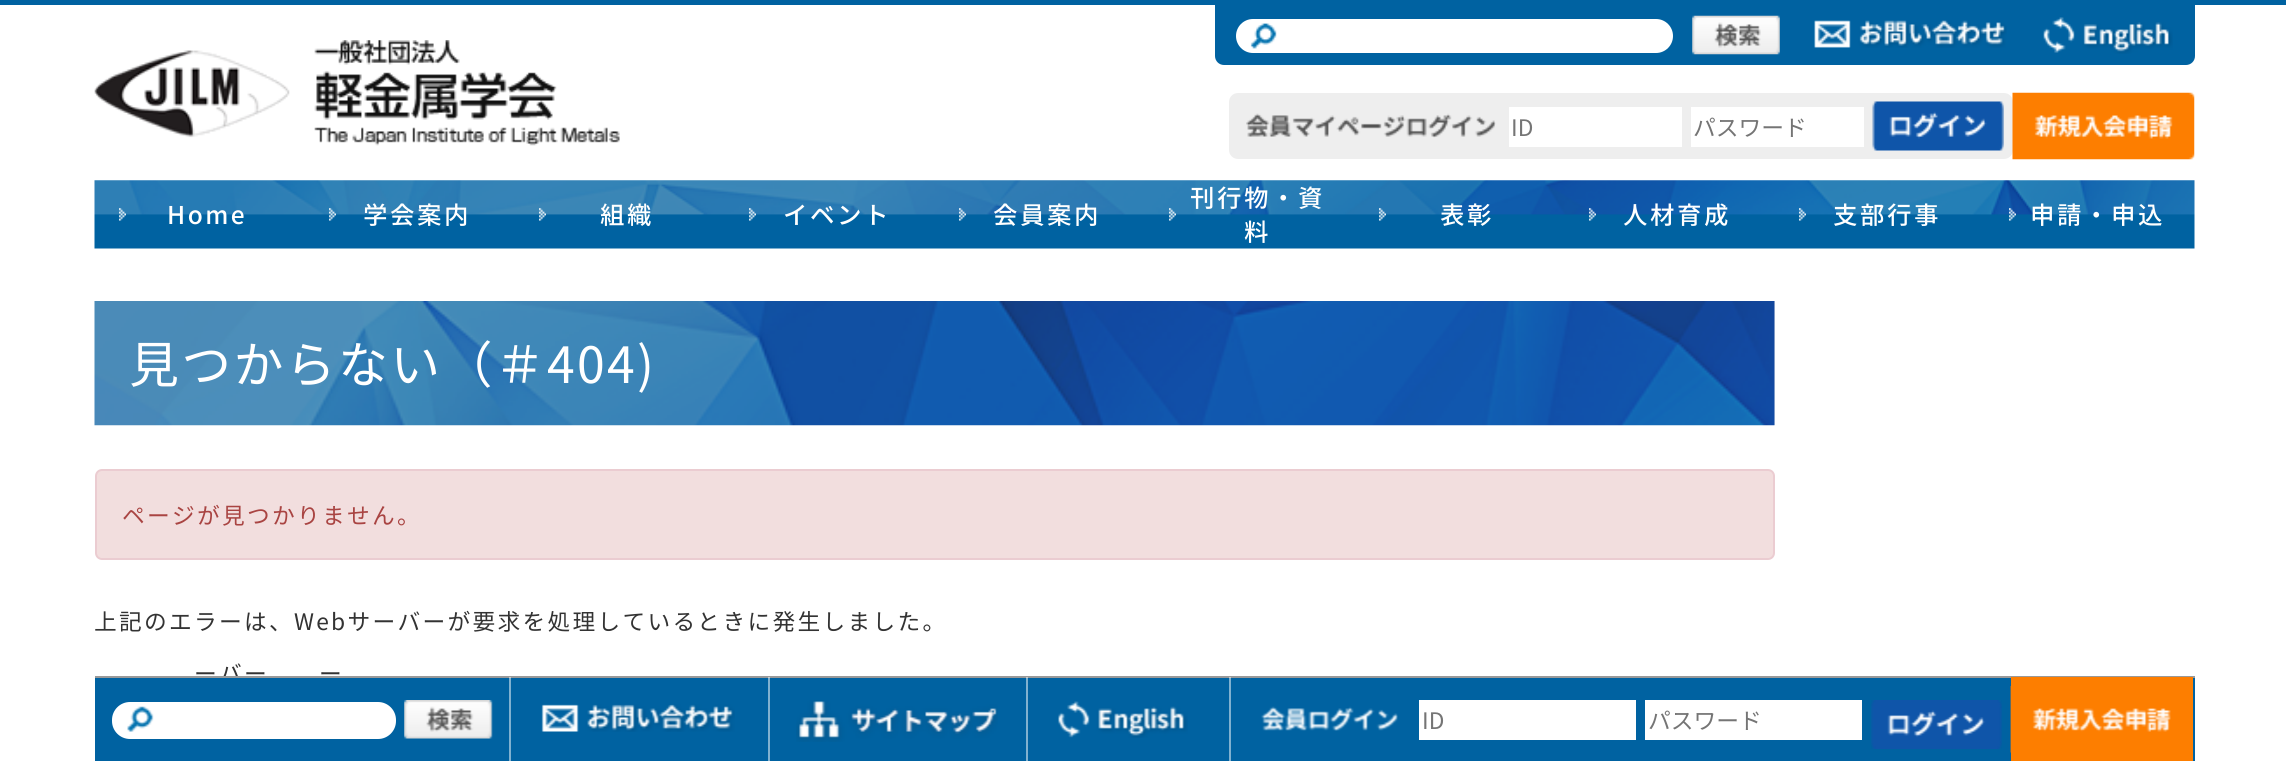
import math
import cairo

surface = cairo.ImageSurface(cairo.FORMAT_RGB24, 2286, 761)
c = cairo.Context(surface)
options = cairo.FontOptions()
options.set_hint_metrics(cairo.HINT_METRICS_OFF)
options.set_hint_style(cairo.HINT_STYLE_NONE)
c.set_font_options(options)
c.set_miter_limit(4)
def C(code):
 c.set_source_rgb(*(v / 255 for v in bytes.fromhex(code[-6:])))
def F(family, size, italic, bold):
 c.select_font_face(family, cairo.FONT_SLANT_ITALIC if italic else cairo.FONT_SLANT_NORMAL, cairo.FONT_WEIGHT_BOLD if bold else cairo.FONT_WEIGHT_NORMAL)
 c.set_font_size(size)
def T(x, y, s):
 c.move_to(x, y)
 c.show_text(s)
def L(x, y, s, letter, word):
 c.move_to(x, y)
 for ch in s:
  c.show_text(ch)
  c.rel_move_to(letter + word * (ch == ' '), 0)
def R(x, y, w, h):
 c.rectangle(x, y, w, h)
 c.fill()
def Q(x, y, w, h, r):
 c.new_sub_path()
 for i, (u, v) in enumerate([(x + w - r, y + h - r), (x + r, y + h - r), (x + r, y + r), (x + w - r, y + r)]):
  c.arc(u, v, r, i * math.pi / 2, (i + 1) * math.pi / 2)
 c.close_path()
def I(path, x, y, w, h):
 c.save()
 c.set_source_surface(cairo.ImageSurface.create_from_png(path), x, y)
 c.rectangle(x, y, w, h)
 c.fill()
 c.restore()
C('ffffff')
c.paint()
C('0062a1')
R(0,0,2286,5)
I('1.png',94,40,526,106)
c.new_path()
c.move_to(1215,5)
c.line_to(2195,5)
c.line_to(2195,56)
c.curve_to(2195,61,2191,65,2186,65)
c.line_to(1224,65)
c.curve_to(1219,65,1215,61,1215,56)
c.close_path()
c.fill()
C('ffffff')
Q(1236,19,437,34,17)
c.fill()
I('2.png',1250,23,27,26)
I('3.png',1692,15,88,40)
I('4.png',1814,20,193,28)
I('5.png',2043,17,130,37)
C('eeeeee')
Q(1229,93,784,66,9)
c.fill()
I('6.png',1246,113,250,25)
C('ffffff')
R(1509,107,173,40)
F('Noto Sans JP',22.75,0,0)
C('757575')
T(1511,136,'ID')
C('ffffff')
R(1691,107,173,40)
C('757575')
T(1693,136,'パスワード')
I('7.png',1872,101,132,50)
I('8.png',2012,92,183,68)
I('9.png',94,180,2101,69)
I('10.png',119,208,7,13)
F('Noto Sans JP Medium',24.5,0,0)
C('ffffff')
L(167,224,'Home',2.5,0)
I('11.png',329,208,7,13)
L(363,224,'学会案内',2.5,0)
I('12.png',539,208,7,13)
L(600,224,'組織',2.5,0)
I('13.png',749,208,7,13)
L(783,224,'イベント',2.5,0)
I('14.png',959,208,7,13)
L(993,224,'会員案内',2.5,0)
I('15.png',1169,208,7,13)
L(1190,207,'刊行物・資',2.5,0)
L(1244,241,'料',2.5,0)
I('16.png',1379,208,7,13)
L(1440,224,'表彰',2.5,0)
I('17.png',1589,208,7,13)
L(1623,224,'人材育成',2.5,0)
I('18.png',1799,208,7,13)
L(1833,224,'支部行事',2.5,0)
I('19.png',2009,208,7,13)
L(2030,224,'申請・申込',2.5,0)
C('eeeeee')
R(1774,301,1,124)
I('20.png',94,301,1681,125)
F('Noto Sans JP',50,0,0)
C('ffffff')
L(129,383,'見つからない（＃404)',2.25,0)
C('f2dede')
Q(96,470,1678,89,6)
c.fill_preserve()
C('ebccd1')
c.stroke()
F('Noto Sans JP',22.75,0,0)
C('a94442')
L(122,524,'ページが見つかりません。',2.25,0)
C('333333')
L(94,630,'上記のエラーは、Webサーバーが要求を処理しているときに発生しました。',2.25,0)
L(194,682,'ーバー',2.25,0)
L(319,682,'ー',2.25,0)
C('0062a1')
R(95,678,2100,83)
C('80b1d0')
R(1229,677,2,84)
R(1026,677,2,84)
R(768,677,2,84)
C('999999')
R(95,676,2100,2)
C('cccccc')
R(1229,677,2,1)
R(1026,677,2,1)
R(768,677,2,1)
c.set_source_rgba(1,1,1,0.5)
R(509,677,2,84)
C('ffffff')
Q(112,702,284,37,18)
c.fill()
I('21.png',127,706,27,26)
I('22.png',404,700,89,39)
I('23.png',541,704,194,28)
I('24.png',796,700,202,42)
I('25.png',1058,701,130,37)
I('26.png',1261,706,137,25)
R(1419,700,217,40)
C('757575')
T(1422,729,'ID')
C('ffffff')
R(1645,700,217,40)
C('757575')
T(1648,729,'パスワード')
I('27.png',1871,700,131,49)
C('fd7e00')
R(2011,677,182,84)
I('28.png',2010,686,161,67)
surface.write_to_png('o.png')
